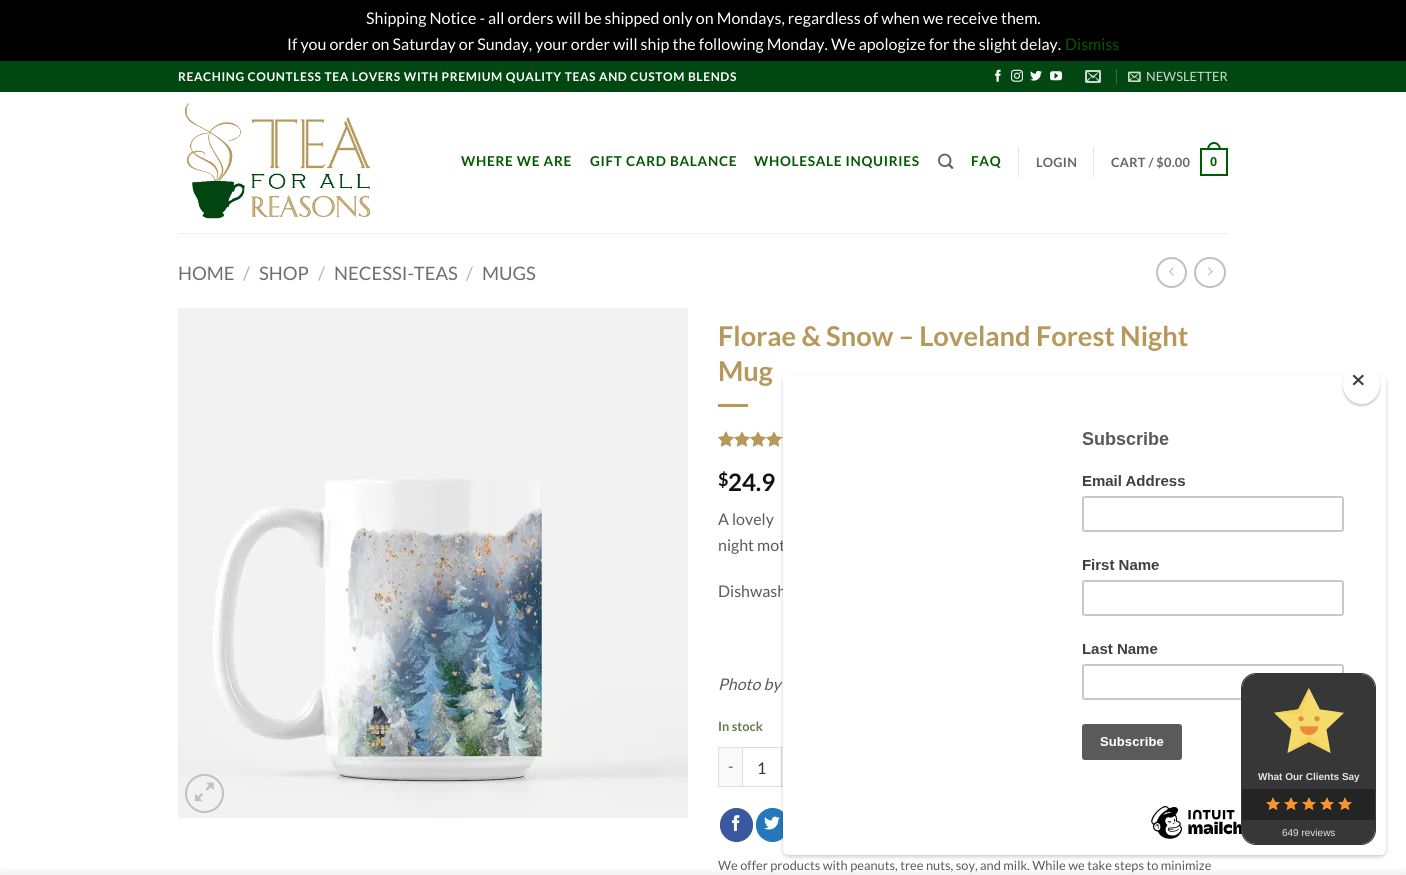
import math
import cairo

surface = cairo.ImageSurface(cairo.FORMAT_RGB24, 1406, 875)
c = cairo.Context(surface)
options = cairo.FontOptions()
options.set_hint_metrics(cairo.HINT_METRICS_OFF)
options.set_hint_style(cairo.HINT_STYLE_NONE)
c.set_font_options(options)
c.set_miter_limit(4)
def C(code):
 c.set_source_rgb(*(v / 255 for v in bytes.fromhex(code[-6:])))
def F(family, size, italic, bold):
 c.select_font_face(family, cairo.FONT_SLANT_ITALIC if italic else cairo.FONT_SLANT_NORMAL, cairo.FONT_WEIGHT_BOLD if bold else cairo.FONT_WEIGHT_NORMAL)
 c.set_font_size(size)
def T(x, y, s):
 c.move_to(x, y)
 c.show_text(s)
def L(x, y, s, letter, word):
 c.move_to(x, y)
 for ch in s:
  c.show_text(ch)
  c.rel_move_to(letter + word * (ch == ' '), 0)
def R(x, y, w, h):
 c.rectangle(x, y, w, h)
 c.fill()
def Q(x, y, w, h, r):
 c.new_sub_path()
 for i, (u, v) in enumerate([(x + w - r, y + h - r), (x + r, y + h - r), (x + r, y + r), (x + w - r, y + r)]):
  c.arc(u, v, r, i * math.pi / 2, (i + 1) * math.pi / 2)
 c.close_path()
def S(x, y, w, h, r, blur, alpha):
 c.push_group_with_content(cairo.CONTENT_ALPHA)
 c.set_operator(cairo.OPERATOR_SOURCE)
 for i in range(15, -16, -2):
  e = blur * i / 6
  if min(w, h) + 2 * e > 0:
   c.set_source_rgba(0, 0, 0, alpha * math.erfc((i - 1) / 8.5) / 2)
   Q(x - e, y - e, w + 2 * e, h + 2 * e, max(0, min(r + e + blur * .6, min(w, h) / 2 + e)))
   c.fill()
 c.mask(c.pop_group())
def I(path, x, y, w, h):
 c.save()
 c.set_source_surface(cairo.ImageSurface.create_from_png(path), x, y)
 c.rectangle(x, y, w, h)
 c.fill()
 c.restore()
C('000000')
c.paint()
F('Lato',16,0,0)
C('ffffff')
T(366,24,'Shipping Notice - all orders will be shipped only on Mondays, regardless of when we receive them.')
T(287,50,'If you order on Saturday or Sunday, your order will ship the following Monday. We apologize for the slight delay.')
C('035901')
T(1065,50,'Dismiss')
C('ffffff')
R(0,92,1406,783)
C('014711')
R(0,61,1406,31)
F('Lato',12,0,1)
C('ffffff')
L(178,81,'REACHING COUNTLESS TEA LOVERS WITH PREMIUM QUALITY TEAS AND CUSTOM BLENDS',.6,0)
I('1.png',995,69,6,13)
I('2.png',1011,69,12,13)
I('3.png',1030,70,12,11)
I('4.png',1050,71,12,10)
I('5.png',1085,70,16,13)
C('346c41')
R(1116,69,1,15)
I('6.png',1128,71,13,11)
F('Lato',12.8,0,0)
C('ccdacf')
T(1146,81,'NEWSLETTER')
I('7.png',185,103,186,116)
F('Lato',13.6,0,1)
C('035901')
L(461,166,'WHERE WE ARE',.7,0)
L(590,166,'GIFT CARD BALANCE',.7,0)
L(754,166,'WHOLESALE INQUIRIES',.7,0)
I('8.png',938,153,16,16)
L(971,166,'FAQ',.7,0)
C('e6e6e6')
R(1018,147,1,30)
F('Lato',12.8,0,1)
C('666666')
L(1036,167,'LOGIN',.25,0)
C('e6e6e6')
R(1093,147,1,30)
C('666666')
L(1111,167,'CART / $0.00',.25,0)
c.rectangle(1201,149,26,26)
C('035901')
c.stroke()
c.set_fill_rule(cairo.FILL_RULE_EVEN_ODD)
c.new_path()
c.move_to(1214,142)
c.curve_to(1218.5,142,1221,146,1221,150)
c.line_to(1207,150)
c.curve_to(1207,146,1209.5,142,1214,142)
c.close_path()
c.move_to(1214,144)
c.curve_to(1217.5,144,1219,147,1219,150)
c.line_to(1209,150)
c.curve_to(1209,147,1210.5,144,1214,144)
c.close_path()
c.fill()
F('Liberation Sans',12.8,0,1)
L(1210,166,'0',.25,0)
C('efefef')
R(178,233,1050,1)
F('Lato',18.5,0,0)
C('6e6e6e')
T(178,280,'HOME')
C('b2b2b2')
T(243,280,'/')
C('6e6e6e')
T(259,280,'SHOP')
C('b2b2b2')
T(318,280,'/')
C('6e6e6e')
T(334,280,'NECESSI-TEAS')
C('b2b2b2')
T(466,280,'/')
C('6e6e6e')
T(482,280,'MUGS')
c.new_path()
c.arc(1171.5,272.5,14.5,0,2 * math.pi)
C('c0c0c0')
c.stroke()
I('9.png',1169,267,5,9)
Q(1195,258,30,29,14.5)
c.stroke()
I('10.png',1208,267,5,9)
I('11.png',178,308,510,510)
c.arc(204.5,793.5,18.5,0,2 * math.pi)
c.stroke()
I('12.png',195,782,19,20)
F('Lato',27.25,0,1)
C('b5985a')
T(718,346,'Florae & Snow – Loveland Forest Night')
T(718,381,'Mug')
R(718,404,30,3)
I('13.png',718,431,65,16)
I('14.png',718,431,65,16)
I('15.png',718,431,10,16)
F('Lato',18,0,1)
C('111111')
T(718,486,'$')
F('Lato',24,0,1)
T(728,491,'24.9')
F('Lato',16,0,0)
C('5c5a5a')
T(718,525,'A lovely')
T(718,551,'night mot')
T(718,597,'Dishwash')
F('Lato',16,1,0)
T(718,690,'Photo by')
F('Lato',12.8,0,1)
C('627d47')
T(718,731,'In stock')
C('f9f9f9')
R(719,748,23,38)
C('dddddd')
R(718,747,24,1)
R(718,786,24,1)
R(718,747,1,40)
F('Lato',16,0,0)
C('666666')
T(728,772,'-')
c.rectangle(742.5,747.5,39,39)
C('dddddd')
c.set_line_width(1)
c.stroke()
C('333333')
T(757,774,'1')
C('f9f9f9')
R(782,748,1,38)
C('dddddd')
R(782,747,1,1)
R(782,786,1,1)
C('3a589d')
Q(720.5,808.5,32,33,16)
c.fill_preserve()
c.stroke()
I('16.png',731,815,9,16)
C('2478ba')
Q(756.5,808.5,32,33,16)
c.fill_preserve()
c.stroke()
I('17.png',764,816,16,14)
F('Lato',12.8,0,0)
C('5c5a5a')
T(718,870,'We offer products with peanuts, tree nuts, soy, and milk. While we take steps to minimize')
C('000000')
S(783,377,603,480,6,2,.2)
C('ffffff')
Q(783,375,603,480,6)
c.fill()
I('18.png',783,378,600,477)
C('000000')
S(1343,367,37,39,18.5,1,.2)
C('ffffff')
c.new_path()
c.move_to(1361.5,365)
c.curve_to(1371.5,365,1380,373.5,1380,384.5)
c.curve_to(1380,395.5,1371.5,404,1361.5,404)
c.curve_to(1351.5,404,1343,395.5,1343,384.5)
c.curve_to(1343,373.5,1351.5,365,1361.5,365)
c.close_path()
c.fill()
C('414141')
c.set_fill_rule(cairo.FILL_RULE_WINDING)
c.new_path()
c.move_to(1362.5,374.5)
c.line_to(1364,376)
c.line_to(1354,385.5)
c.line_to(1352.5,384)
c.close_path()
c.fill()
c.new_path()
c.move_to(1352.5,376)
c.line_to(1354,374.5)
c.line_to(1364,384)
c.line_to(1362.5,385.5)
c.close_path()
c.fill()
Q(1241.5,673.5,134,171,14.5)
C('373737')
c.stroke()
c.new_path()
c.move_to(1256,674)
c.line_to(1361,674)
c.curve_to(1368.5,674,1375,680.5,1375,688)
c.line_to(1375,789)
c.line_to(1242,789)
c.line_to(1242,688)
c.curve_to(1242,680.5,1248.5,674,1256,674)
c.close_path()
c.fill()
C('242424')
R(1242,789,133,31)
C('373737')
c.new_path()
c.move_to(1242,820)
c.line_to(1375,820)
c.line_to(1375,830)
c.curve_to(1375,837.5,1368.5,844,1361,844)
c.line_to(1256,844)
c.curve_to(1248.5,844,1242,837.5,1242,830)
c.close_path()
c.fill()
I('19.png',1274,688,70,65)
F('Liberation Sans',10,0,1)
C('e5e5e5')
T(1258,780,'What Our Clients Say')
I('20.png',1266,797,14,13)
I('21.png',1266,797,14,13)
I('20.png',1284,797,14,13)
I('21.png',1284,797,14,13)
I('20.png',1302,797,14,13)
I('21.png',1302,797,14,13)
I('20.png',1320,797,14,13)
I('21.png',1320,797,14,13)
I('20.png',1338,797,14,13)
I('22.png',1338,797,13,13)
F('Liberation Sans',10,0,0)
T(1282,836,'649 reviews')
C('000000')
S(0,875,1406,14,0,4.5,.14)
surface.write_to_png('o.png')
